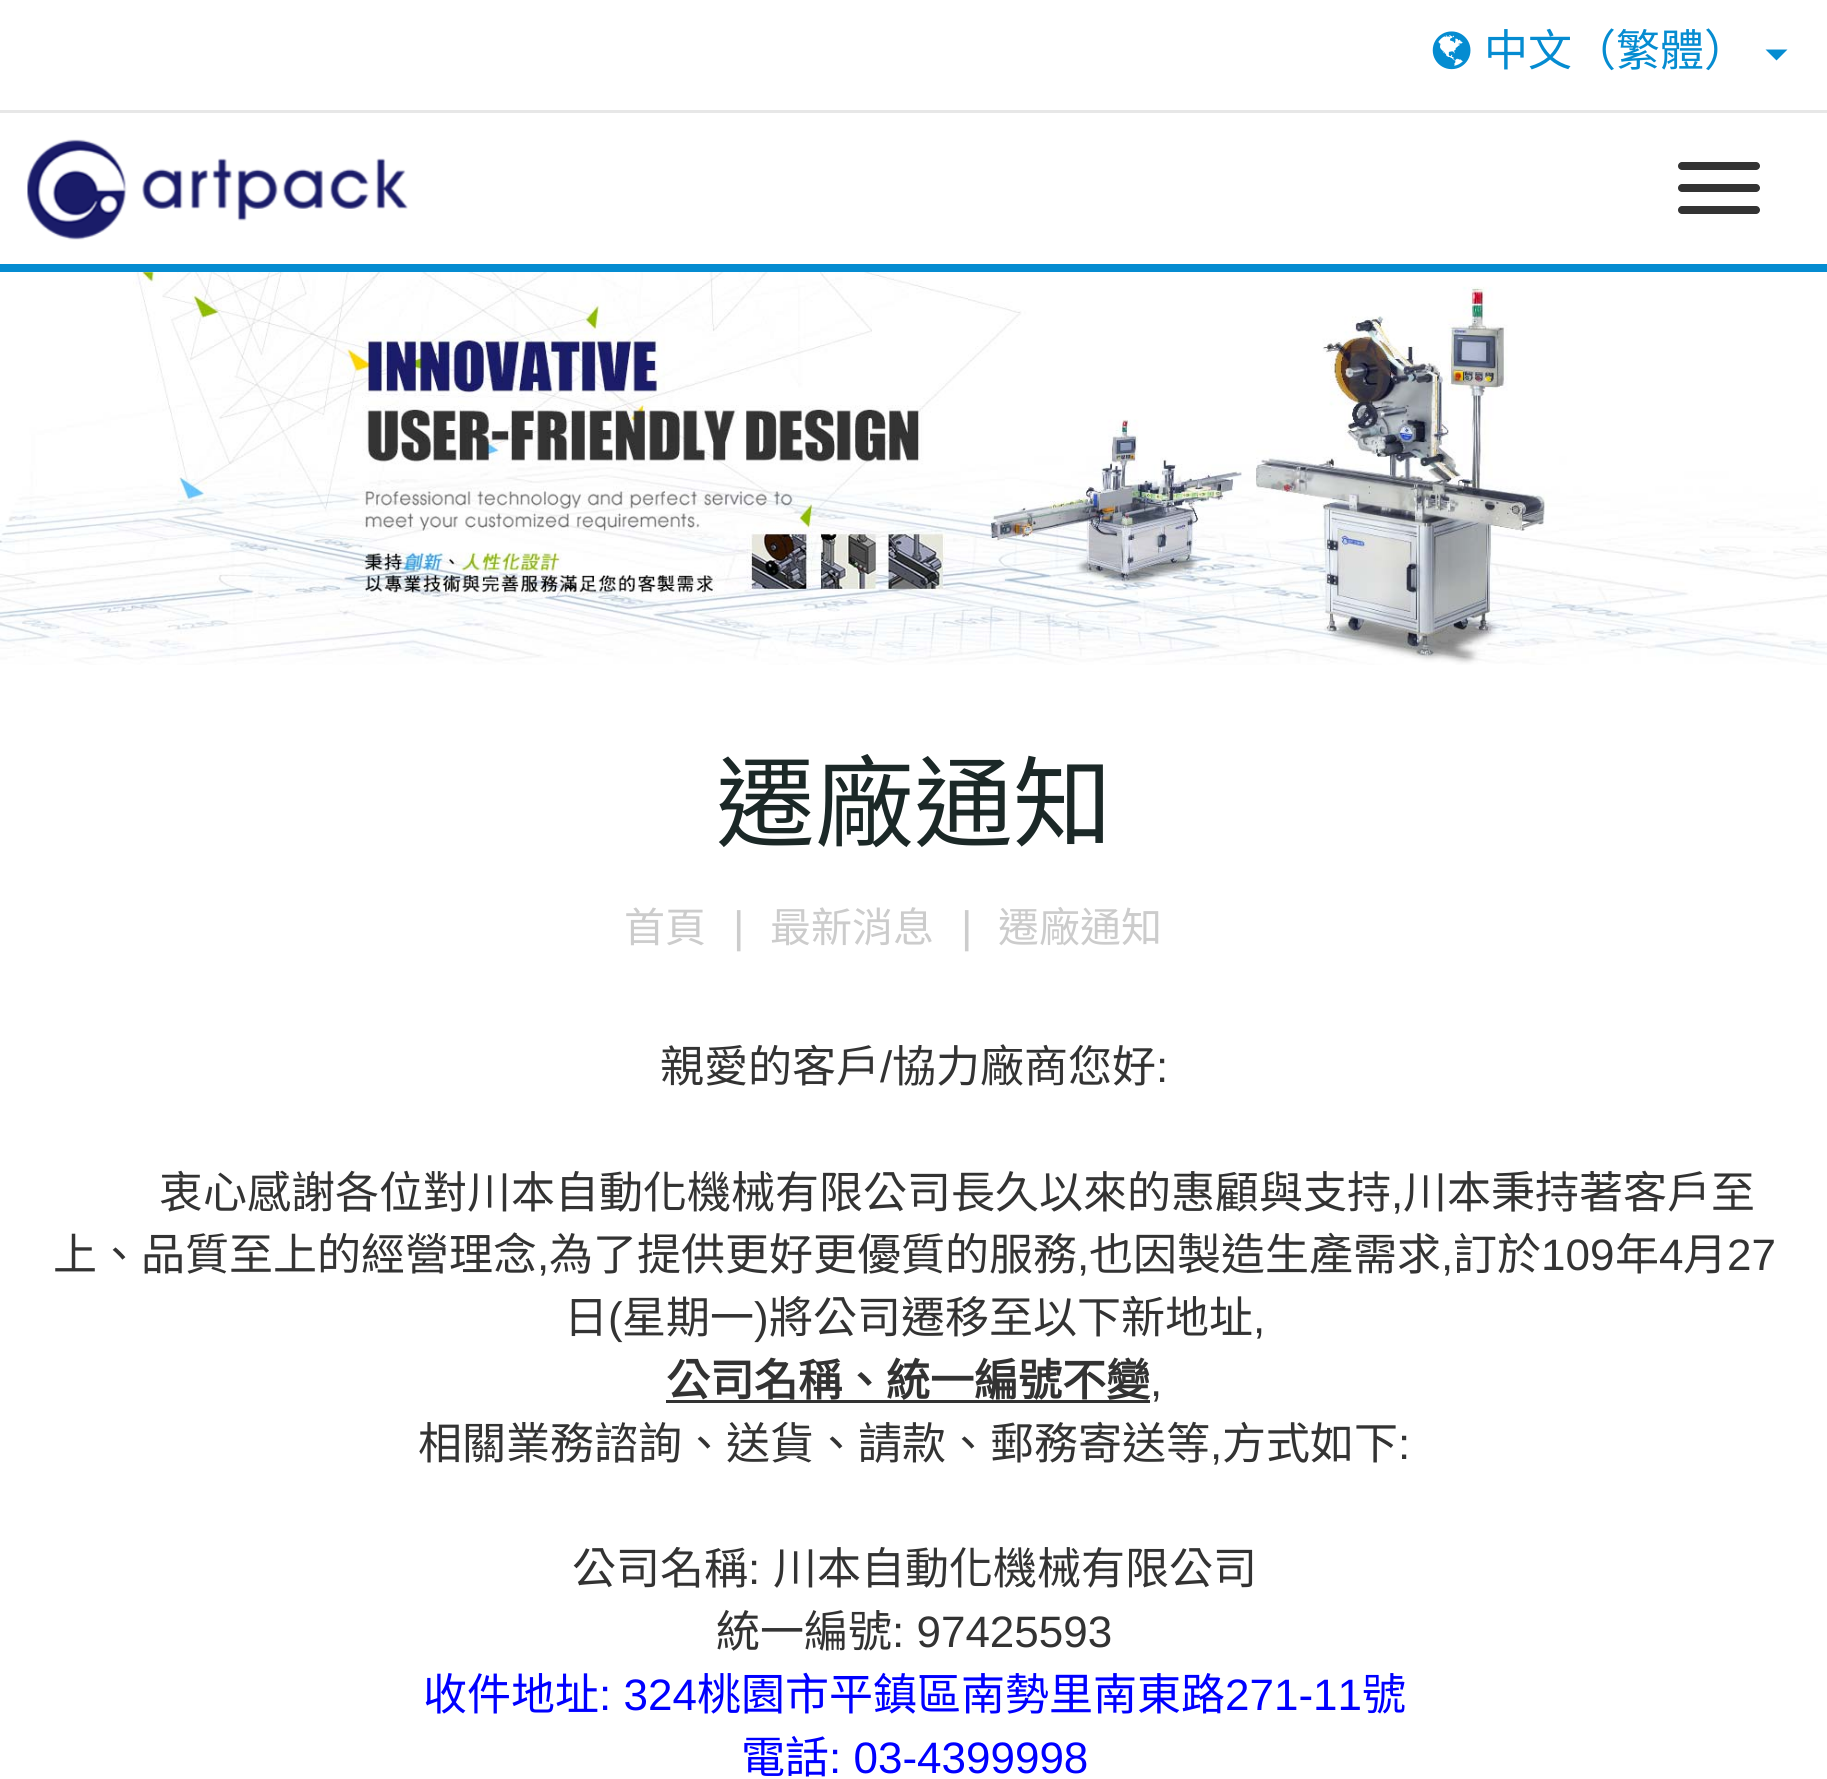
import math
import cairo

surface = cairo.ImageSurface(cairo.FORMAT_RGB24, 1827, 1779)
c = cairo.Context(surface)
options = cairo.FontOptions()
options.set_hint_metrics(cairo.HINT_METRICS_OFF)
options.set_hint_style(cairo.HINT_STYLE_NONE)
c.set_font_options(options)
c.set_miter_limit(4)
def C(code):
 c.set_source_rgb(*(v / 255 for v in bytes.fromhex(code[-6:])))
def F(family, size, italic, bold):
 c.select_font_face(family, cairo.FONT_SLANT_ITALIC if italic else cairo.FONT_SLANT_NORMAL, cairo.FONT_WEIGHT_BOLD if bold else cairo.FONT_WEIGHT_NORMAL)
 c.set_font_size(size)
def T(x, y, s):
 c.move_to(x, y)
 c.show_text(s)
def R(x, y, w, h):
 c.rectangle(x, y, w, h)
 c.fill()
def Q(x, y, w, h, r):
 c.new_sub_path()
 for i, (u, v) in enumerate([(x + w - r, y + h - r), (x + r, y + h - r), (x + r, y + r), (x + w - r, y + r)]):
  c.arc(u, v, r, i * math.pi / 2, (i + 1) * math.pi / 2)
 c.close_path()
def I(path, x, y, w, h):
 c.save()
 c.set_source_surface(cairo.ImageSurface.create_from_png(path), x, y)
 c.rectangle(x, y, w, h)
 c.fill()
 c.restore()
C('ffffff')
c.paint()
I('1.png',1432,31,39,39)
F('Noto Sans CJK TC',44,0,0)
C('058cd1')
T(1484,66,'中文（繁體）')
c.new_path()
c.move_to(1765.5,49.5)
c.line_to(1787.5,49.5)
c.line_to(1776.5,60.5)
c.close_path()
c.fill()
C('e7e7e7')
R(0,110,1827,3)
C('058cd1')
R(0,264,1827,8)
I('2.png',27,139,381,101)
C('333333')
Q(1678,184,82,8,4)
c.fill()
Q(1678,162,82,8,4)
c.fill()
Q(1678,206,82,8,4)
c.fill()
I('3.png',0,272,1827,393)
F('Noto Sans CJK TC',99,0,0)
C('1b2827')
T(716,839,'遷廠通知')
F('Noto Sans CJK TC',41,0,0)
C('cccccc')
T(624,942,'首頁')
F('Liberation Sans',44,0,0)
T(733,942,'|')
F('Noto Sans CJK TC',41,0,0)
T(770,942,'最新消息')
F('Liberation Sans',44,0,0)
T(961,942,'|')
F('Noto Sans CJK TC',41,0,0)
T(998,942,'遷廠通知')
F('Noto Sans CJK TC',44,0,0)
C('333333')
T(660,1082,'親愛的客戶')
F('Liberation Sans',44,0,0)
T(880,1082,'/')
F('Noto Sans CJK TC',44,0,0)
T(892,1082,'協力廠商您好')
F('Liberation Sans',44,0,0)
T(1156,1082,':')
F('Noto Sans CJK TC',44,0,0)
T(159,1208,'衷心感謝各位對川本自動化機械有限公司長久以來的惠顧與支持')
F('Liberation Sans',44,0,0)
T(1391,1208,',')
F('Noto Sans CJK TC',44,0,0)
T(1403,1208,'川本秉持著客戶至')
T(53,1270,'上、品質至上的經營理念')
F('Liberation Sans',44,0,0)
T(537,1270,',')
F('Noto Sans CJK TC',44,0,0)
T(549,1270,'為了提供更好更優質的服務')
F('Liberation Sans',44,0,0)
T(1077,1270,',')
F('Noto Sans CJK TC',44,0,0)
T(1089,1270,'也因製造生產需求')
F('Liberation Sans',44,0,0)
T(1441,1270,',')
F('Noto Sans CJK TC',44,0,0)
T(1453,1270,'訂於')
F('Liberation Sans',44,0,0)
T(1541,1270,'109')
F('Noto Sans CJK TC',44,0,0)
T(1615,1270,'年')
F('Liberation Sans',44,0,0)
T(1659,1270,'4')
F('Noto Sans CJK TC',44,0,0)
T(1683,1270,'月')
F('Liberation Sans',44,0,0)
T(1727,1270,'27')
F('Noto Sans CJK TC',44,0,0)
T(564,1333,'日')
F('Liberation Sans',44,0,0)
T(608,1333,'(')
F('Noto Sans CJK TC',44,0,0)
T(622,1333,'星期一')
F('Liberation Sans',44,0,0)
T(754,1333,')')
F('Noto Sans CJK TC',44,0,0)
T(769,1333,'將公司遷移至以下新地址')
F('Liberation Sans',44,0,0)
T(1253,1333,',')
F('Noto Sans CJK TC',44,0,1)
T(666,1396,'公司名稱、統一編號不變')
R(666,1400,484,3)
F('Liberation Sans',44,0,0)
T(1150,1396,',')
F('Noto Sans CJK TC',44,0,0)
T(418,1459,'相關業務諮詢、送貨、請款、郵務寄送等')
F('Liberation Sans',44,0,0)
T(1210,1459,',')
F('Noto Sans CJK TC',44,0,0)
T(1222,1459,'方式如下')
F('Liberation Sans',44,0,0)
T(1398,1459,':')
F('Noto Sans CJK TC',44,0,0)
T(572,1584,'公司名稱')
F('Liberation Sans',44,0,0)
T(748,1584,':')
F('Noto Sans CJK TC',44,0,0)
T(773,1584,'川本自動化機械有限公司')
T(716,1647,'統一編號')
F('Liberation Sans',44,0,0)
T(892,1647,': 97425593')
F('Noto Sans CJK TC',44,0,0)
C('0000ff')
T(423,1710,'收件地址')
F('Liberation Sans',44,0,0)
T(599,1710,': 324')
F('Noto Sans CJK TC',44,0,0)
T(697,1710,'桃園市平鎮區南勢里南東路')
F('Liberation Sans',44,0,0)
T(1225,1710,'271-11')
F('Noto Sans CJK TC',44,0,0)
T(1362,1710,'號')
T(741,1773,'電話')
F('Liberation Sans',44,0,0)
T(829,1773,': 03-4399998')
surface.write_to_png('o.png')
